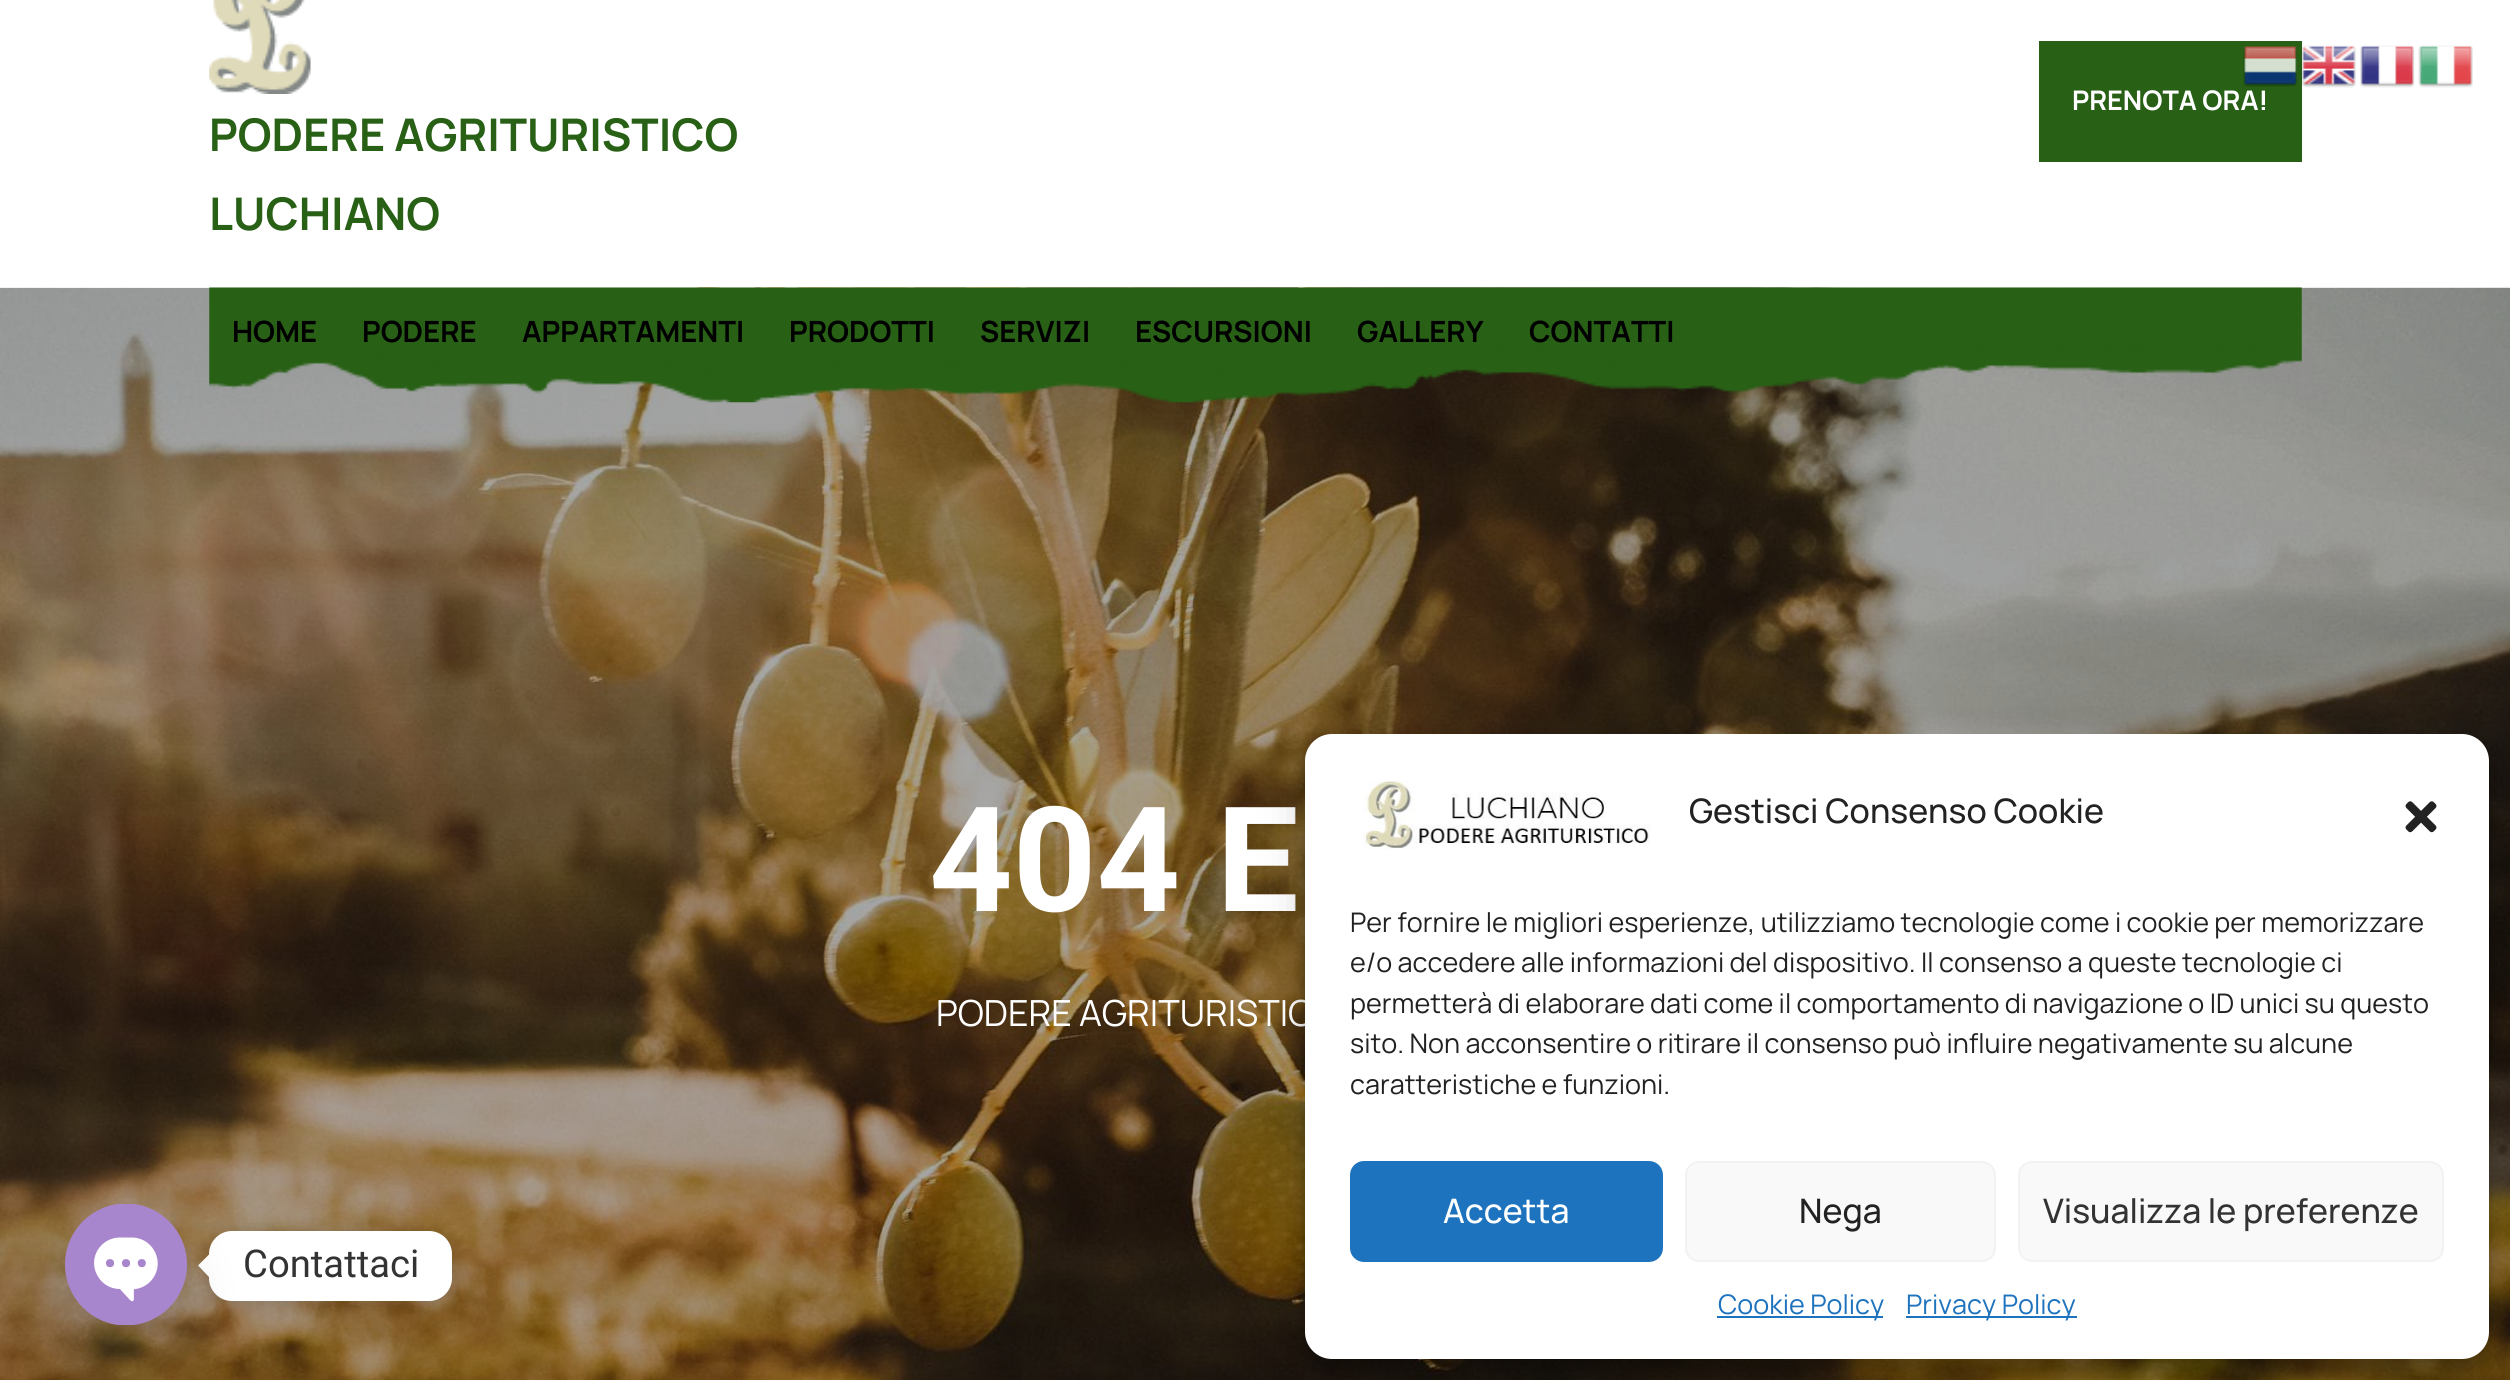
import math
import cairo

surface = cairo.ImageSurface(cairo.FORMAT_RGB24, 2510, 1380)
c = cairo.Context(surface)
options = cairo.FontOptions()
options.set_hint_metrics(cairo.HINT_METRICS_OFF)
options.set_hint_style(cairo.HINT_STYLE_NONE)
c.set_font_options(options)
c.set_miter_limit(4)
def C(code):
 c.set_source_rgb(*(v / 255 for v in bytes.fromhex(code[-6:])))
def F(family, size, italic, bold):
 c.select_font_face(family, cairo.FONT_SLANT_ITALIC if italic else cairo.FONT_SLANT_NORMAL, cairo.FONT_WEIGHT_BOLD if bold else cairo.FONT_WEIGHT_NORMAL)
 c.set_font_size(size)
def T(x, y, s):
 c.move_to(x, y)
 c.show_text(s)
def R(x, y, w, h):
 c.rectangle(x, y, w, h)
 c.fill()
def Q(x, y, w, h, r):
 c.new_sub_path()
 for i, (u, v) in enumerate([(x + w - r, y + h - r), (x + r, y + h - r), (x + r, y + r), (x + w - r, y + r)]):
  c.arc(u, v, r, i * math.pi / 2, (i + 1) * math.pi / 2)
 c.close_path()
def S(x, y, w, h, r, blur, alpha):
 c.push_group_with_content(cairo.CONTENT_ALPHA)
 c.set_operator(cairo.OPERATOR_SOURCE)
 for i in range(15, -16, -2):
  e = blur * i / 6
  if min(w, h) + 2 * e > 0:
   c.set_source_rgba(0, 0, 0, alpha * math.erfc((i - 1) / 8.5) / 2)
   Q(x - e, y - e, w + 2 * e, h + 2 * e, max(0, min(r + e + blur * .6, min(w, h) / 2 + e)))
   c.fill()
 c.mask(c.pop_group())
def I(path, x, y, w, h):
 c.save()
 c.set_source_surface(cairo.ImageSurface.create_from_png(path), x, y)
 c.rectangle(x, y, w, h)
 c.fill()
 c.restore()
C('ffffff')
c.paint()
C('286016')
R(2039,41,263,121)
I('1.png',2243,46,54,41)
I('2.png',2301,45,55,43)
I('3.png',2360,45,55,43)
I('4.png',2418,45,55,43)
F('Manrope',27,0,1)
C('ffffff')
T(2072,110,'PRENOTA ORA!')
I('5.png',209,0,102,94)
F('Manrope',45,0,1)
C('286016')
T(209,151,'PODERE AGRITURISTICO')
T(209,230,'LUCHIANO')
I('7.png',0,287,2510,1093)
I('6.png',209,287,2093,116)
F('Manrope',29.25,0,1)
C('000000')
T(232,342,'HOME')
T(362,342,'PODERE')
T(522,342,'APPARTAMENTI')
T(789,342,'PRODOTTI')
T(980,342,'SERVIZI')
T(1135,342,'ESCURSIONI')
T(1357,342,'GALLERY')
T(1529,342,'CONTATTI')
F('Roboto',146,0,1)
C('ffffff')
T(929,911,'404 E')
F('Manrope ExtraLight',36,0,0)
T(936,1026,'PODERE AGRITURISTIC')
C('000000')
S(1305,747,1184,626,27,7,.23)
S(1305,756,1184,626,27,22.5,.19)
C('ffffff')
Q(1305,734,1184,625,27)
c.fill()
I('8.png',1363,780,287,70)
F('Manrope Medium',33.75,0,0)
C('222222')
T(1689,823,'Gestisci Consenso Cookie')
I('9.png',2405,801,32,32)
F('Manrope ExtraLight',27,0,0)
T(1350,932,'Per fornire le migliori esperienze, utilizziamo tecnologie come i cookie per memorizzare')
T(1350,972,'e/o accedere alle informazioni del dispositivo. Il consenso a queste tecnologie ci')
T(1350,1013,'permetterà di elaborare dati come il comportamento di navigazione o ID unici su questo')
T(1350,1053,'sito. Non acconsentire o ritirare il consenso può influire negativamente su alcune')
T(1350,1094,'caratteristiche e funzioni.')
C('1e73be')
Q(1351,1162,311,99,13)
c.fill_preserve()
c.stroke()
F('Manrope Medium',33.75,0,0)
C('ffffff')
T(1443,1223,'Accetta')
C('f9f9f9')
Q(1686,1162,309,99,13)
c.fill_preserve()
C('f2f2f2')
c.stroke()
C('222222')
T(1799,1223,'Nega')
C('f9f9f9')
Q(2019,1162,424,99,13)
c.fill_preserve()
C('f2f2f2')
c.stroke()
C('333333')
T(2043,1223,'Visualizza le preferenze')
C('1e73be')
R(1717,1316,166,2)
F('Manrope ExtraLight',27,0,0)
T(1718,1314,'Cookie Policy')
R(1906,1316,171,2)
T(1906,1314,'Privacy Policy')
c.save()
c.set_fill_rule(cairo.FILL_RULE_EVEN_ODD)
c.new_path()
c.move_to(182,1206)
c.line_to(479,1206)
c.line_to(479,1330)
c.line_to(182,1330)
c.close_path()
c.move_to(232,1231)
c.line_to(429,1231)
c.curve_to(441.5,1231,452,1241.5,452,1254)
c.line_to(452,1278)
c.curve_to(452,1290.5,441.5,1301,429,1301)
c.line_to(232,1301)
c.curve_to(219.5,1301,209,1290.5,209,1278)
c.line_to(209,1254)
c.curve_to(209,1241.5,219.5,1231,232,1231)
c.close_path()
c.clip()
C('000000')
S(209,1233,243,70,23,8.5,.15)
c.restore()
C('ffffff')
Q(209,1231,243,70,23)
c.fill()
c.new_path()
c.move_to(209,1254.5)
c.line_to(209,1277)
c.line_to(198,1265.5)
c.close_path()
c.fill()
C('49687e')
S(65,1240,122,121,60.5,27,.16)
I('10.png',65,1204,122,121)
F('Roboto',38.25,0,0)
C('333333')
T(243,1277,'Contattaci')
surface.write_to_png('o.png')
